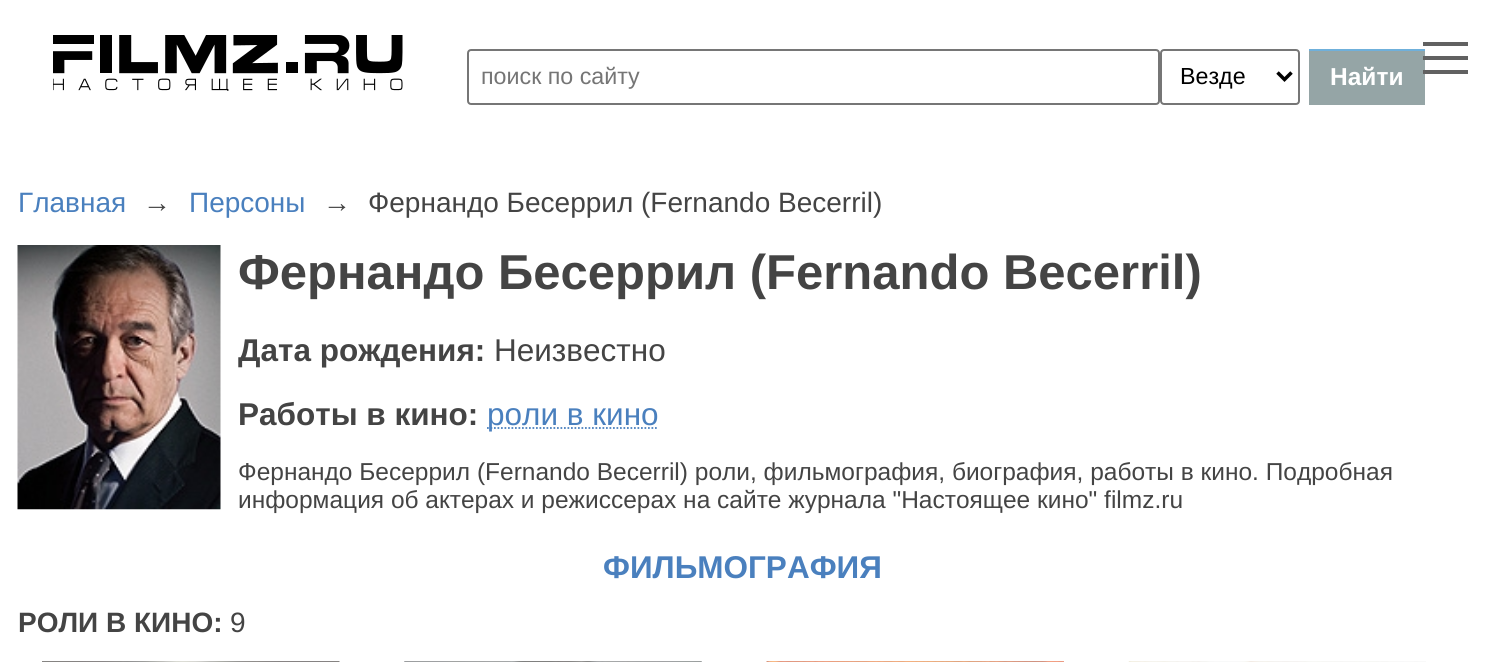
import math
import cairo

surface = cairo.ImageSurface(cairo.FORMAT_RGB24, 1485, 662)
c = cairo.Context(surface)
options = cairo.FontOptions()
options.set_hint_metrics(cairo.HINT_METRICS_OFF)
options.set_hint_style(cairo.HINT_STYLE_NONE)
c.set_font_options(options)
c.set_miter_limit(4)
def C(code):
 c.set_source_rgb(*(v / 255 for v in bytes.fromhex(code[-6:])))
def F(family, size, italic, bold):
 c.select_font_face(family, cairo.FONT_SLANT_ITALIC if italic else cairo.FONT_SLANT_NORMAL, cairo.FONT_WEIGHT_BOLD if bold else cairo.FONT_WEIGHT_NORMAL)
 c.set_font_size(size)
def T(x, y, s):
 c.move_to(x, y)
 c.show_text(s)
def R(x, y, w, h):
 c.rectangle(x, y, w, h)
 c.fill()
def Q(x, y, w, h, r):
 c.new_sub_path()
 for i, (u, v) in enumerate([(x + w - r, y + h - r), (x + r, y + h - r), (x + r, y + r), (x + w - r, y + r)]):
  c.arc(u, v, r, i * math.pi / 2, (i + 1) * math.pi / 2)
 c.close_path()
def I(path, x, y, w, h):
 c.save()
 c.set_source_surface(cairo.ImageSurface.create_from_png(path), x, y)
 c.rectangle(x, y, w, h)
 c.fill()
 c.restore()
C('ffffff')
c.paint()
C('95a5a6')
R(1309,51,116,54)
C('616161')
R(1423,56,45,4)
R(1423,42,45,4)
R(1423,70,45,4)
I('1.png',53,35,350,56)
Q(468,50,691,54,3)
C('767676')
c.stroke()
F('Liberation Sans',23.25,0,0)
C('757575')
T(481,84,'поиск по сайту')
Q(1161,50,138,54,3)
C('767676')
c.stroke()
c.new_path()
c.move_to(1277.5,72.5)
c.line_to(1284.5,79.5)
c.line_to(1291.5,72.5)
C('000000')
c.set_line_width(3.5)
c.stroke()
T(1180,84,'Везде')
C('6fb0db')
R(1309,49,116,2)
F('Liberation Sans',24.5,0,1)
C('ffffff')
T(1330,85,'Найти')
F('Liberation Sans',28,0,0)
C('4a80be')
T(18,212,'Главная')
C('444444')
T(143,212,'→')
C('4a80be')
T(189,212,'Персоны')
C('444444')
T(323,212,'→')
T(368,212,'Фернандо Бесеррил (Fernando Becerril)')
I('2.png',17,245,204,265)
F('Liberation Sans',49,0,1)
T(238,289,'Фернандо Бесеррил (Fernando Becerril)')
F('Liberation Sans',31.5,0,1)
T(238,361,'Дата рождения:')
F('Liberation Sans',31.5,0,0)
T(494,361,'Неизвестно')
F('Liberation Sans',31.5,0,1)
T(238,425,'Работы в кино:')
c.new_path()
c.move_to(487,428)
c.line_to(658.5,428)
C('4a80be')
c.set_line_width(1.8)
c.set_dash([1.75,1.75])
c.stroke()
F('Liberation Sans',31.5,0,0)
T(487,425,'роли в кино')
F('Liberation Sans',24.5,0,0)
C('444444')
T(238,480,'Фернандо Бесеррил (Fernando Becerril) роли, фильмография, биография, работы в кино. Подробная')
T(238,508,'информация об актерах и режиссерах на сайте журнала "Настоящее кино" filmz.ru')
F('Liberation Sans',31.5,0,1)
C('4a80be')
T(603,578,'ФИЛЬМОГРАФИЯ')
F('Liberation Sans',28,0,1)
C('444444')
T(18,632,'РОЛИ В КИНО:')
F('Liberation Sans',28,0,0)
T(230,632,'9')
I('3.png',42,661,298,1)
I('4.png',404,661,298,1)
I('5.png',766,661,298,1)
I('6.png',1128,661,298,1)
surface.write_to_png('o.png')
